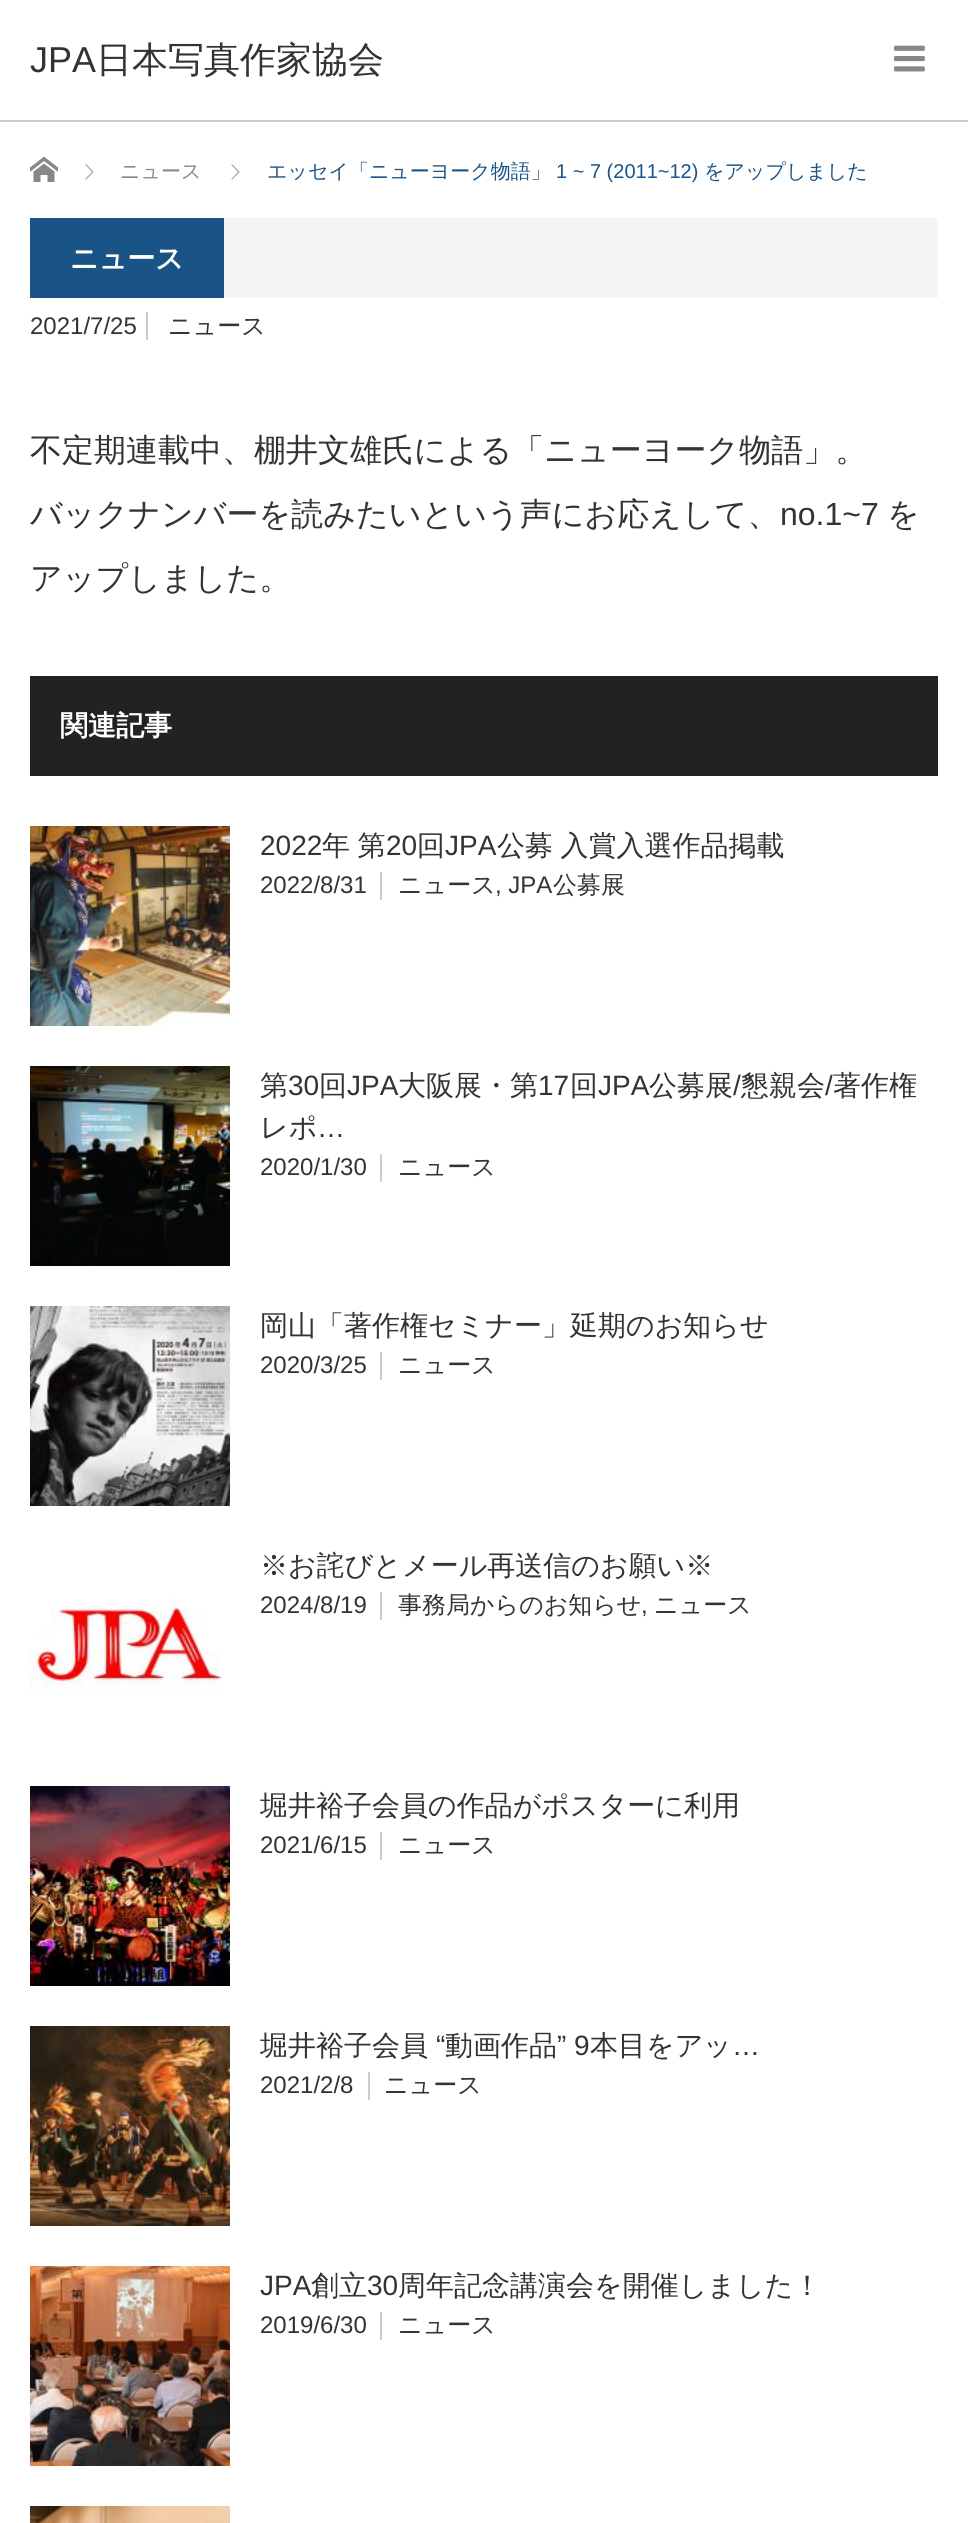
import math
import cairo

surface = cairo.ImageSurface(cairo.FORMAT_RGB24, 968, 2523)
c = cairo.Context(surface)
options = cairo.FontOptions()
options.set_hint_metrics(cairo.HINT_METRICS_OFF)
options.set_hint_style(cairo.HINT_STYLE_NONE)
c.set_font_options(options)
c.set_miter_limit(4)
def C(code):
 c.set_source_rgb(*(v / 255 for v in bytes.fromhex(code[-6:])))
def F(family, size, italic, bold):
 c.select_font_face(family, cairo.FONT_SLANT_ITALIC if italic else cairo.FONT_SLANT_NORMAL, cairo.FONT_WEIGHT_BOLD if bold else cairo.FONT_WEIGHT_NORMAL)
 c.set_font_size(size)
def T(x, y, s):
 c.move_to(x, y)
 c.show_text(s)
def L(x, y, s, letter, word):
 c.move_to(x, y)
 for ch in s:
  c.show_text(ch)
  c.rel_move_to(letter + word * (ch == ' '), 0)
def R(x, y, w, h):
 c.rectangle(x, y, w, h)
 c.fill()
def I(path, x, y, w, h):
 c.save()
 c.set_source_surface(cairo.ImageSurface.create_from_png(path), x, y)
 c.rectangle(x, y, w, h)
 c.fill()
 c.restore()
C('ffffff')
c.paint()
C('cccccc')
R(0,120,968,2)
F('Liberation Sans',36,0,0)
C('333333')
T(30,72,'JPA')
F('WenQuanYi Zen Hei Medium',36,0,0)
T(96,72,'日本写真作家協会')
I('1.png',894,45,31,27)
I('2.png',30,156,28,26)
I('3.png',85,164,9,16)
F('WenQuanYi Zen Hei Medium',20,0,0)
C('888888')
T(120,178,'ニュース')
I('3.png',231,164,9,16)
C('1a5487')
T(267,178,'エッセイ「ニューヨーク物語」')
F('Liberation Sans',20,0,0)
T(556,178,'1 ~ 7 (2011~12)')
F('WenQuanYi Zen Hei Medium',20,0,0)
T(704,178,'をアップしました')
C('f5f5f5')
R(224,218,714,80)
C('1a5487')
R(30,218,194,80)
F('WenQuanYi Zen Hei',28,0,1)
C('ffffff')
T(70,268,'ニュース')
F('Liberation Sans',24,0,0)
C('333333')
T(30,334,'2021/7/25')
C('cccccc')
R(146,312,2,28)
F('WenQuanYi Zen Hei Medium',24,0,0)
C('333333')
T(168,334,'ニュース')
F('WenQuanYi Zen Hei Medium',32,0,0)
T(30,461,'不定期連載中、棚井文雄氏による「ニューヨーク物語」。')
T(30,525,'バックナンバーを読みたいという声にお応えして、')
F('Liberation Sans',32,0,0)
T(780,525,'no.1~7')
F('WenQuanYi Zen Hei Medium',32,0,0)
T(887,525,'を')
T(30,589,'アップしました。')
C('222222')
R(30,676,908,100)
F('WenQuanYi Zen Hei',28,0,1)
C('ffffff')
T(60,735,'関連記事')
I('4.png',30,826,200,200)
F('Liberation Sans',28,0,0)
C('333333')
T(260,855,'2022')
F('WenQuanYi Zen Hei Medium',28,0,0)
L(322,855,'年 第',0,-1)
F('Liberation Sans',28,0,0)
T(386,855,'20')
F('WenQuanYi Zen Hei Medium',28,0,0)
T(417,855,'回')
F('Liberation Sans',28,0,0)
T(445,855,'JPA')
F('WenQuanYi Zen Hei Medium',28,0,0)
L(497,855,'公募 入賞入選作品掲載',0,-1)
F('Liberation Sans',24,0,0)
T(260,893,'2022/8/31')
C('cccccc')
R(380,872,2,28)
F('WenQuanYi Zen Hei Medium',24,0,0)
C('333333')
T(398,893,'ニュース')
F('Liberation Sans',24,0,0)
T(495,893,', JPA')
F('WenQuanYi Zen Hei Medium',24,0,0)
T(553,893,'公募展')
I('5.png',30,1066,200,200)
F('WenQuanYi Zen Hei Medium',28,0,0)
T(260,1095,'第')
F('Liberation Sans',28,0,0)
T(288,1095,'30')
F('WenQuanYi Zen Hei Medium',28,0,0)
T(319,1095,'回')
F('Liberation Sans',28,0,0)
T(347,1095,'JPA')
F('WenQuanYi Zen Hei Medium',28,0,0)
T(398,1095,'大阪展・第')
F('Liberation Sans',28,0,0)
T(538,1095,'17')
F('WenQuanYi Zen Hei Medium',28,0,0)
T(570,1095,'回')
F('Liberation Sans',28,0,0)
T(598,1095,'JPA')
F('WenQuanYi Zen Hei Medium',28,0,0)
T(649,1095,'公募展')
F('Liberation Sans',28,0,0)
T(733,1095,'/')
F('WenQuanYi Zen Hei Medium',28,0,0)
T(741,1095,'懇親会')
F('Liberation Sans',28,0,0)
T(825,1095,'/')
F('WenQuanYi Zen Hei Medium',28,0,0)
T(833,1095,'著作権')
T(260,1137,'レポ')
F('Liberation Sans',28,0,0)
T(317,1137,'…')
F('Liberation Sans',24,0,0)
T(260,1175,'2020/1/30')
C('cccccc')
R(380,1154,2,28)
F('WenQuanYi Zen Hei Medium',24,0,0)
C('333333')
T(398,1175,'ニュース')
I('6.png',30,1306,200,200)
F('WenQuanYi Zen Hei Medium',28,0,0)
T(260,1335,'岡山「著作権セミナー」延期のお知らせ')
F('Liberation Sans',24,0,0)
T(260,1373,'2020/3/25')
C('cccccc')
R(380,1352,2,28)
F('WenQuanYi Zen Hei Medium',24,0,0)
C('333333')
T(398,1373,'ニュース')
F('WenQuanYi Zen Hei Medium',28,0,0)
T(260,1575,'※お詫びとメール再送信のお願い※')
I('7.png',30,1599,193,97)
F('Liberation Sans',24,0,0)
T(260,1613,'2024/8/19')
C('cccccc')
R(380,1592,2,28)
F('WenQuanYi Zen Hei Medium',24,0,0)
C('333333')
T(398,1613,'事務局からのお知らせ')
F('Liberation Sans',24,0,0)
T(641,1613,',')
F('WenQuanYi Zen Hei Medium',24,0,0)
T(654,1613,'ニュース')
I('8.png',30,1786,200,200)
F('WenQuanYi Zen Hei Medium',28,0,0)
T(260,1815,'堀井裕子会員の作品がポスターに利用')
F('Liberation Sans',24,0,0)
T(260,1853,'2021/6/15')
C('cccccc')
R(380,1832,2,28)
F('WenQuanYi Zen Hei Medium',24,0,0)
C('333333')
T(398,1853,'ニュース')
I('9.png',30,2026,200,200)
F('WenQuanYi Zen Hei Medium',28,0,0)
T(260,2055,'堀井裕子会員')
F('Liberation Sans',28,0,0)
T(436,2055,'“')
F('WenQuanYi Zen Hei Medium',28,0,0)
T(445,2055,'動画作品')
F('Liberation Sans',28,0,0)
T(557,2055,'” 9')
F('WenQuanYi Zen Hei Medium',28,0,0)
T(590,2055,'本目をアッ')
F('Liberation Sans',28,0,0)
T(732,2055,'…')
F('Liberation Sans',24,0,0)
T(260,2093,'2021/2/8')
C('cccccc')
R(368,2072,2,28)
F('WenQuanYi Zen Hei Medium',24,0,0)
C('333333')
T(384,2093,'ニュース')
I('10.png',30,2266,200,200)
F('Liberation Sans',28,0,0)
T(260,2295,'JPA')
F('WenQuanYi Zen Hei Medium',28,0,0)
T(311,2295,'創立')
F('Liberation Sans',28,0,0)
T(367,2295,'30')
F('WenQuanYi Zen Hei Medium',28,0,0)
T(398,2295,'周年記念講演会を開催しました！')
F('Liberation Sans',24,0,0)
T(260,2333,'2019/6/30')
C('cccccc')
R(380,2312,2,28)
F('WenQuanYi Zen Hei Medium',24,0,0)
C('333333')
T(398,2333,'ニュース')
I('11.png',30,2506,200,17)
surface.write_to_png('o.png')
